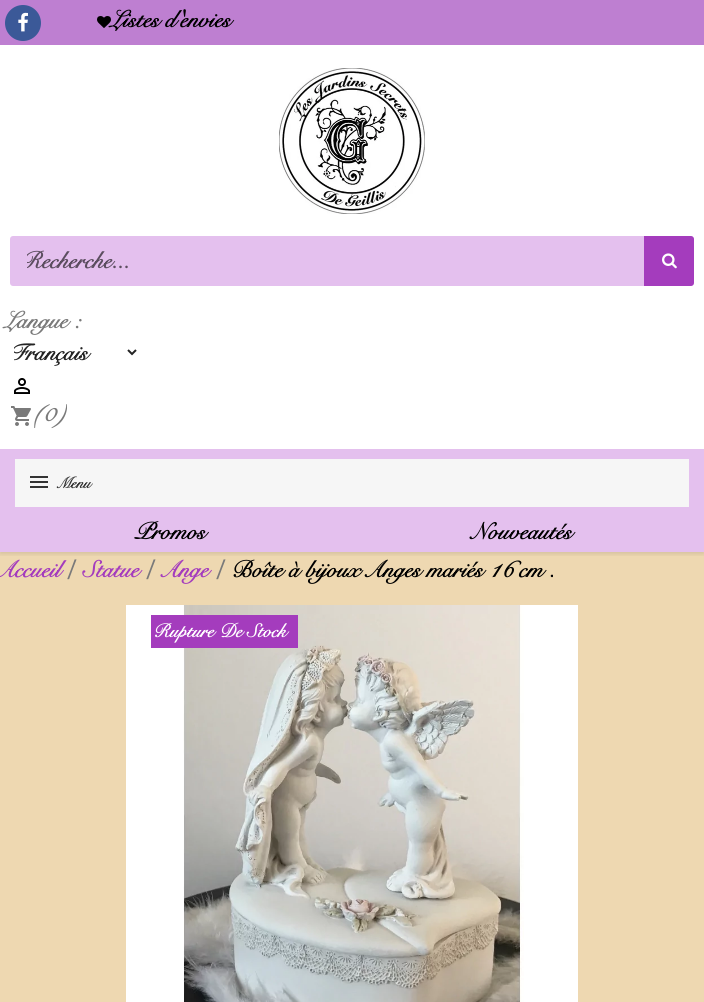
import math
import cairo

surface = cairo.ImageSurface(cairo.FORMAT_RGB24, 704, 1002)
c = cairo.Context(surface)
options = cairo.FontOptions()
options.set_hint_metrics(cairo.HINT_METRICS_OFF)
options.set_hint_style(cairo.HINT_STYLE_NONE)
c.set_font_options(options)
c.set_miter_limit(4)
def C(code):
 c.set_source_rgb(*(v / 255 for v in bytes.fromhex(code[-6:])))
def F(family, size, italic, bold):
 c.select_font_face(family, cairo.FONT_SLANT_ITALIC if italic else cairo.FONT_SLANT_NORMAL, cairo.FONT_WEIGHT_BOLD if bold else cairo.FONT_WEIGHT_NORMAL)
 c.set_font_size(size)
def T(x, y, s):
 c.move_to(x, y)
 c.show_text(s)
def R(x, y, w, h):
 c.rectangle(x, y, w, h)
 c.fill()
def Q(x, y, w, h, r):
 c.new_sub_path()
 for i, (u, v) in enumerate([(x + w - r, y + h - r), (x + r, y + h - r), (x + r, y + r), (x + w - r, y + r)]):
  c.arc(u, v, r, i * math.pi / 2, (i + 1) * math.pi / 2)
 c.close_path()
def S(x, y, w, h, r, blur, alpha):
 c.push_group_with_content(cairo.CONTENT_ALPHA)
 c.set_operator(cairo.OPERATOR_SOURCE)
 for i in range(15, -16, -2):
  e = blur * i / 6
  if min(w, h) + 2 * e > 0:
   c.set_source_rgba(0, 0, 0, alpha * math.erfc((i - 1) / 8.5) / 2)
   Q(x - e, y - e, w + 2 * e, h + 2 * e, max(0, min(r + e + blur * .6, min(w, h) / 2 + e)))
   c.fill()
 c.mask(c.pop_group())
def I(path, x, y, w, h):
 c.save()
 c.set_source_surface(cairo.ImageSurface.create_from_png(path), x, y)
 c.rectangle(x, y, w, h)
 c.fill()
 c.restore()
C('ffffff')
c.paint()
C('eed8b1')
R(0,552,704,450)
c.save()
c.rectangle(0,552,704,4)
c.clip()
C('000000')
S(0,2,704,552,0,2.5,.11)
c.restore()
C('be7fd1')
R(0,0,704,45)
C('3b5998')
c.arc(23,23,18,0,2 * math.pi)
c.fill()
I('1.png',18,12,10,20)
I('2.png',97,16,14,12)
F('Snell',24,0,1)
C('000000')
T(116,27,'Listes d\'envies')
I('3.png',279,68,146,146)
C('e4c0ee')
Q(10,236,684,50,3)
c.fill()
c.save()
c.rectangle(27,245,561,31)
c.clip()
C('5b4d5f')
T(27,268,'Recherche...')
c.restore()
C('a43cbd')
c.new_path()
c.move_to(644,236)
c.line_to(691,236)
c.curve_to(692.5,236,694,237.5,694,239)
c.line_to(694,283)
c.curve_to(694,284.5,692.5,286,691,286)
c.line_to(644,286)
c.close_path()
c.fill()
I('4.png',662,253,15,16)
C('7a7a7a')
T(10,328,'Langue :')
c.new_path()
c.move_to(128,350)
c.line_to(132,354)
c.line_to(136,350)
C('232323')
c.stroke()
c.save()
c.rectangle(14,336,110,33)
c.clip()
T(14,360,'Français')
c.restore()
I('5.png',14,378,16,16)
I('6.png',11,406,20,20)
C('7a7a7a')
T(40,421,'(0)')
C('e4c0ee')
R(0,449,704,103)
C('f6f6f6')
R(15,459,674,48)
C('333333')
R(30,476,18,2)
R(30,481,18,2)
R(30,486,18,2)
F('Snell',16,0,1)
T(62,488,'Menu')
F('Snell',24,0,1)
C('000000')
T(140,539,'Promos')
T(477,539,'Nouveautés')
C('a43cbd')
T(4,577,'Accueil')
C('7a7a7a')
T(71,577,'/')
C('a43cbd')
T(89,577,'Statue')
C('7a7a7a')
T(150,577,'/')
C('a43cbd')
T(168,577,'Ange')
C('7a7a7a')
T(220,577,'/')
C('000000')
T(237,577,'Boîte à bijoux Anges mariés 16 cm .')
C('ffffff')
R(126,605,452,397)
I('7.png',183,605,341,397)
C('a43cbd')
R(151,615,147,33)
F('Snell',19.25,0,1)
C('ffffff')
T(158,637,'Rupture De Stock')
surface.write_to_png('o.png')
